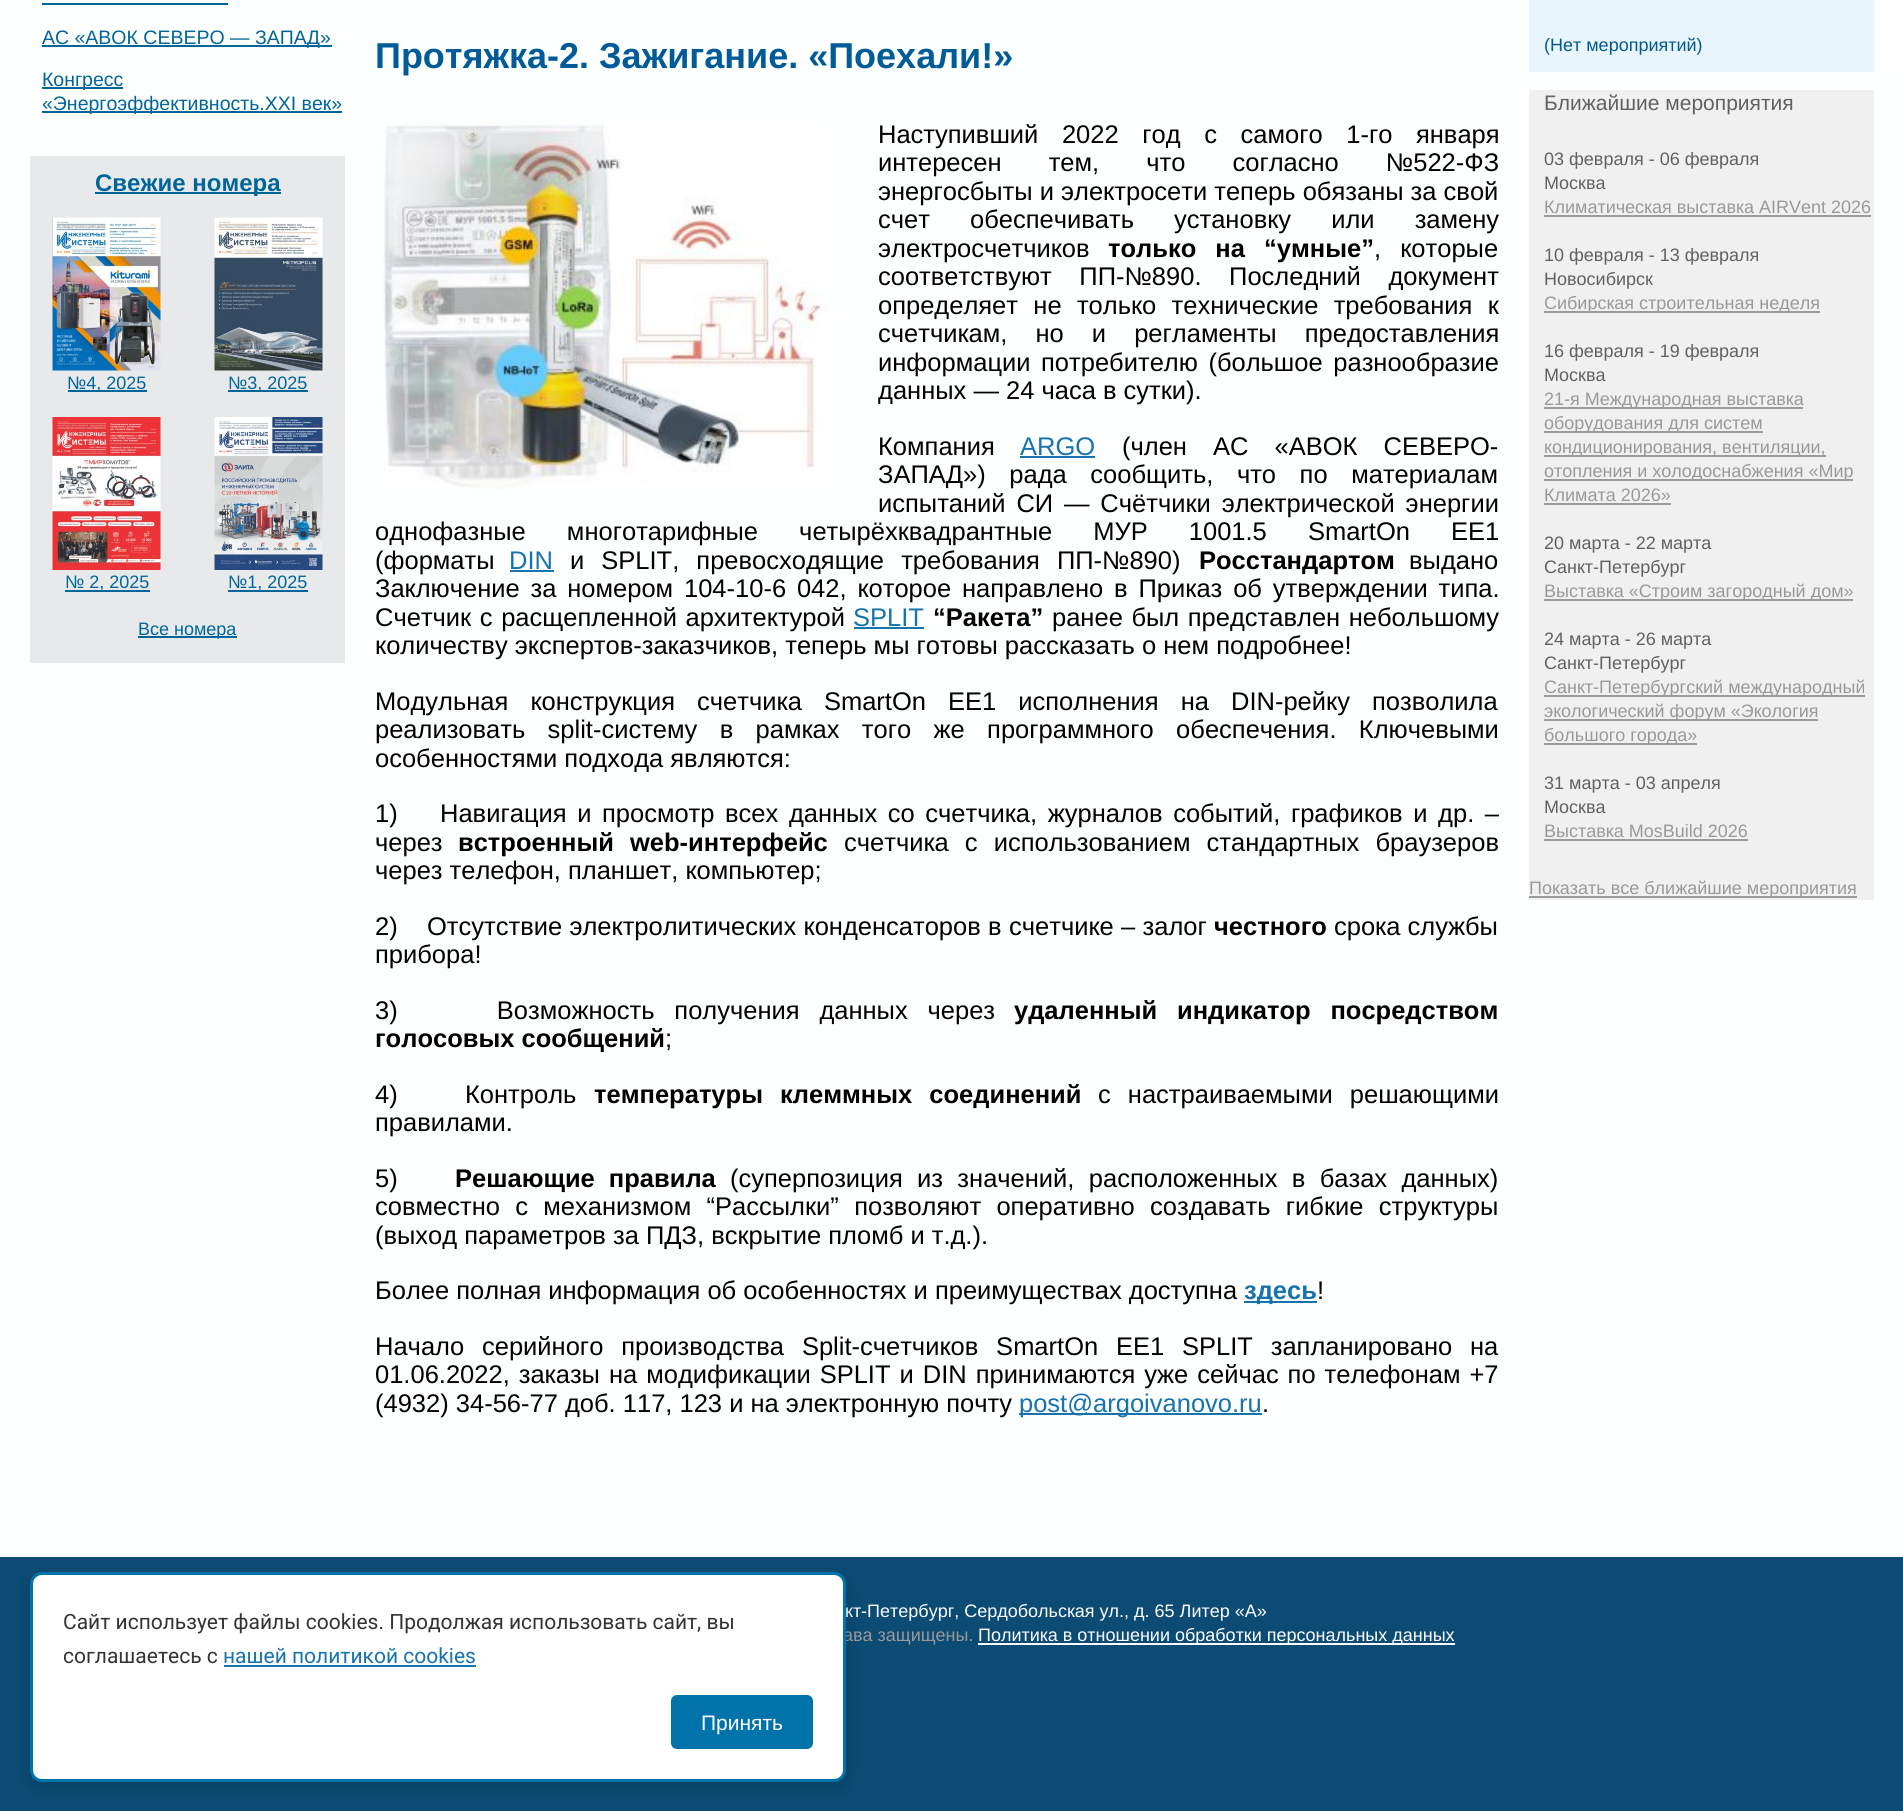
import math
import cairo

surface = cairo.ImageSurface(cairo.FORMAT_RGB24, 1903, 1811)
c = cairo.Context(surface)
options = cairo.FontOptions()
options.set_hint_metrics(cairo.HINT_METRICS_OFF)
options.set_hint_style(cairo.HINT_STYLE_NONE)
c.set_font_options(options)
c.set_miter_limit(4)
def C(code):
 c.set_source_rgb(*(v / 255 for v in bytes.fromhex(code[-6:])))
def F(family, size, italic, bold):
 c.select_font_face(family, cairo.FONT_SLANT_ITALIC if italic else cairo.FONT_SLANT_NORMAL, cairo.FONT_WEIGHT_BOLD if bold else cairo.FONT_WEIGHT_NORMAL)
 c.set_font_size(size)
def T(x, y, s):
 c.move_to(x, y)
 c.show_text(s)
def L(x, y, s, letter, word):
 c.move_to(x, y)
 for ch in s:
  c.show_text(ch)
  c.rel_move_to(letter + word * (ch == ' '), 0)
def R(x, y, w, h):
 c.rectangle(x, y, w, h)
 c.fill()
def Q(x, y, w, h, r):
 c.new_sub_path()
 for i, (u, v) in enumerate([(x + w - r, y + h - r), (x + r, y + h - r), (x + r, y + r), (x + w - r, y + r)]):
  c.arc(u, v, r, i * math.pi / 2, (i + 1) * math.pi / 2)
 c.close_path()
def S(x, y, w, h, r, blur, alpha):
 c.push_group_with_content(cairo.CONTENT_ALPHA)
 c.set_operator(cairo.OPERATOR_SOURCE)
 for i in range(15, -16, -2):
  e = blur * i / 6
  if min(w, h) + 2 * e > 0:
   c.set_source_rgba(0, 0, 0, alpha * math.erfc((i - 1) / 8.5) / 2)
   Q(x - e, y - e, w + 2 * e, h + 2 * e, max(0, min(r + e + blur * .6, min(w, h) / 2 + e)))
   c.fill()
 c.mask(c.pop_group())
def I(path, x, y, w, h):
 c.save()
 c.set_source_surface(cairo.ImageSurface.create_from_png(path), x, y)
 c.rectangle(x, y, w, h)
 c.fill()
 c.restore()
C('fdfefe')
c.paint()
C('006699')
R(42,3,186,2)
R(42,45,290,2)
F('Liberation Sans',19.5,0,0)
T(42,44,'АС «АВОК СЕВЕРО — ЗАПАД»')
R(42,87,81,2)
T(42,86,'Конгресс')
R(42,111,300,2)
T(42,110,'«Энергоэффективность.XXI век»')
C('e8e9eb')
R(30,156,315,507)
C('006699')
R(95,192,186,2)
F('Liberation Sans',24,0,1)
T(95,191,'Свежие номера')
I('1.png',52,217,109,154)
R(68,390,79,2)
F('Liberation Sans',18,0,0)
T(67,389,'№4, 2025')
I('2.png',214,217,109,154)
R(228,390,80,2)
T(228,389,'№3, 2025')
I('3.png',52,417,109,153)
R(65,590,85,2)
T(65,588,'№ 2, 2025')
I('4.png',214,417,109,153)
R(228,590,80,2)
T(228,588,'№1, 2025')
R(138,636,99,2)
T(138,635,'Все номера')
F('Liberation Sans',36,0,1)
C('005b98')
T(375,68,'Протяжка-2. Зажигание. «Поехали!»')
I('5.png',383,124,443,365)
F('Liberation Sans',25.5,0,0)
C('000000')
L(878,143,'Наступивший 2022 год с самого 1-го января',0,16.5)
L(878,171,'интересен тем, что согласно №522-ФЗ',0,40)
T(878,200,'энергосбыты и электросети теперь обязаны за свой')
L(878,228,'счет обеспечивать установку или замену',0,33)
T(878,257,'электросчетчиков')
F('Liberation Sans',25.5,0,1)
L(1108,257,'только на “умные”',0,12)
F('Liberation Sans',25.5,0,0)
L(1374,257,', которые',0,12)
L(878,285,'соответствуют ПП-№890. Последний документ',0,20.5)
L(878,314,'определяет не только технические требования к',0,8.25)
L(878,342,'счетчикам, но и регламенты предоставления',0,21)
L(878,371,'информации потребителю (большое разнообразие',0,3.5)
T(878,399,'данных — 24 часа в сутки).')
T(878,455,'Компания')
C('1773ae')
T(1020,455,'ARGO')
R(1020,456,75,2)
C('000000')
L(1122,455,'(член АС «АВОК СЕВЕРО-',0,19)
L(878,483,'ЗАПАД») рада сообщить, что по материалам',0,16.5)
L(878,512,'испытаний СИ — Счётчики электрической энергии',0,3.75)
L(375,540,'однофазные многотарифные четырёхквадрантные МУР 1001.5 SmartOn EE1',0,34)
T(375,569,'(форматы')
C('1773ae')
T(509,569,'DIN')
R(510,570,44,2)
C('000000')
L(570,569,'и SPLIT, превосходящие требования ПП-№890)',0,10)
F('Liberation Sans',25.5,0,1)
T(1199,569,'Росстандартом')
F('Liberation Sans',25.5,0,0)
T(1409,569,'выдано')
L(375,597,'Заключение за номером 104-10-6 042, которое направлено в Приказ об утверждении типа.',0,3.75)
L(375,626,'Счетчик с расщепленной архитектурой',0,1.5)
C('1773ae')
T(853,626,'SPLIT')
R(854,627,70,2)
F('Liberation Sans',25.5,0,1)
C('000000')
T(933,626,'“Ракета”')
F('Liberation Sans',25.5,0,0)
L(1052,626,'ранее был представлен небольшому',0,1.5)
T(375,654,'количеству экспертов-заказчиков, теперь мы готовы рассказать о нем подробнее!')
L(375,710,'Модульная конструкция счетчика SmartOn EE1 исполнения на DIN-рейку позволила',0,15)
L(375,738,'реализовать split-систему в рамках того же программного обеспечения. Ключевыми',0,15.25)
T(375,767,'особенностями подхода являются:')
L(375,822,'1)    Навигация и просмотр всех данных со счетчика, журналов событий, графиков и др. –',0,3.5)
T(375,851,'через')
F('Liberation Sans',25.5,0,1)
T(458,851,'встроенный')
T(630,851,'web-интерфейс')
F('Liberation Sans',25.5,0,0)
L(844,851,'счетчика с использованием стандартных браузеров',0,9)
T(375,879,'через телефон, планшет, компьютер;')
L(375,935,'2)    Отсутствие электролитических конденсаторов в счетчике – залог',0,.25)
F('Liberation Sans',25.5,0,1)
T(1214,935,'честного')
F('Liberation Sans',25.5,0,0)
T(1334,935,'срока службы')
T(375,963,'прибора!')
L(375,1019,'3)     Возможность получения данных через',0,12.75)
F('Liberation Sans',25.5,0,1)
L(1014,1019,'удаленный индикатор посредством',0,12.75)
T(375,1047,'голосовых сообщений')
F('Liberation Sans',25.5,0,0)
T(665,1047,';')
T(375,1103,'4)')
T(465,1103,'Контроль')
F('Liberation Sans',25.5,0,1)
L(594,1103,'температуры клеммных соединений',0,10)
F('Liberation Sans',25.5,0,0)
L(1098,1103,'с настраиваемыми решающими',0,10)
T(375,1131,'правилами.')
T(375,1187,'5)')
F('Liberation Sans',25.5,0,1)
L(455,1187,'Решающие правила',0,7)
F('Liberation Sans',25.5,0,0)
L(730,1187,'(суперпозиция из значений, расположенных в базах данных)',0,7.25)
L(375,1215,'совместно с механизмом “Рассылки” позволяют оперативно создавать гибкие структуры',0,8.25)
T(375,1244,'(выход параметров за ПДЗ, вскрытие пломб и т.д.).')
T(375,1299,'Более полная информация об особенностях и преимуществах доступна')
C('1773ae')
R(1244,1301,73,2)
F('Liberation Sans',25.5,0,1)
T(1244,1299,'здесь')
F('Liberation Sans',25.5,0,0)
C('000000')
T(1317,1299,'!')
L(375,1355,'Начало серийного производства Split-счетчиков SmartOn EE1 SPLIT запланировано на',0,10.75)
L(375,1383,'01.06.2022, заказы на модификации SPLIT и DIN принимаются уже сейчас по телефонам +7',0,1.9)
T(375,1412,'(4932) 34-56-77 доб. 117, 123 и на электронную почту')
C('1773ae')
R(1019,1413,243,2)
T(1019,1412,'post@argoivanovo.ru')
C('000000')
T(1262,1412,'.')
C('e8f5fc')
R(1529,0,345,72)
F('Liberation Sans',18,0,0)
C('005990')
T(1544,51,'(Нет мероприятий)')
C('f0f0f0')
R(1529,90,345,810)
F('Liberation Sans',21,0,0)
C('616161')
T(1544,110,'Ближайшие мероприятия')
F('Liberation Sans',18,0,0)
T(1544,165,'03 февраля - 06 февраля')
T(1544,189,'Москва')
C('999999')
T(1544,213,'Климатическая выставка AIRVent 2026')
C('9b9b9b')
R(1544,215,327,2)
C('616161')
T(1544,261,'10 февраля - 13 февраля')
T(1544,285,'Новосибирск')
C('9b9b9b')
R(1544,311,276,2)
C('999999')
T(1544,309,'Сибирская строительная неделя')
C('616161')
T(1544,357,'16 февраля - 19 февраля')
T(1544,381,'Москва')
C('9b9b9b')
R(1544,407,259,2)
C('999999')
T(1544,405,'21-я Международная выставка')
C('9b9b9b')
R(1544,431,219,2)
C('999999')
T(1544,429,'оборудования для систем')
C('9b9b9b')
R(1544,455,282,2)
C('999999')
T(1544,453,'кондиционирования, вентиляции,')
C('9b9b9b')
R(1544,479,309,2)
C('999999')
T(1544,477,'отопления и холодоснабжения «Мир')
T(1544,501,'Климата 2026»')
C('9b9b9b')
R(1544,503,127,2)
C('616161')
T(1544,549,'20 марта - 22 марта')
T(1544,573,'Санкт-Петербург')
C('9b9b9b')
R(1544,599,309,2)
C('999999')
T(1544,597,'Выставка «Строим загородный дом»')
C('616161')
T(1544,645,'24 марта - 26 марта')
T(1544,669,'Санкт-Петербург')
C('9b9b9b')
R(1544,695,321,2)
C('999999')
T(1544,693,'Санкт-Петербургский международный')
C('9b9b9b')
R(1544,719,274,2)
C('999999')
T(1544,717,'экологический форум «Экология')
C('9b9b9b')
R(1544,743,153,2)
C('999999')
T(1544,741,'большого города»')
C('616161')
T(1544,789,'31 марта - 03 апреля')
T(1544,813,'Москва')
C('999999')
T(1544,837,'Выставка MosBuild 2026')
C('9b9b9b')
R(1544,839,204,2)
R(1529,896,328,2)
C('999999')
T(1529,894,'Показать все ближайшие мероприятия')
C('0b4b74')
R(0,1557,1903,254)
C('ffffff')
T(845,1617,'кт-Петербург, Сердобольская ул., д. 65 Литер «А»')
C('999999')
T(843,1641,'ава защищены.')
C('ffffff')
R(978,1643,477,2)
T(978,1641,'Политика в отношении обработки персональных данных')
C('000000')
S(30,1578,816,210,12,9,.15)
C('ffffff')
Q(31.5,1573.5,813,207,10.5)
c.fill_preserve()
C('0073aa')
c.set_line_width(3)
c.stroke()
F('Roboto',21,0,0)
C('333333')
T(63,1629,'Сайт использует файлы cookies. Продолжая использовать сайт, вы')
T(63,1663,'соглашаетесь с')
C('1773ae')
T(223,1663,'нашей политикой cookies')
R(224,1665,252,2)
C('0073aa')
Q(671,1695,142,54,6)
c.fill()
F('Liberation Sans',21,0,0)
C('ffffff')
T(701,1730,'Принять')
surface.write_to_png('o.png')
